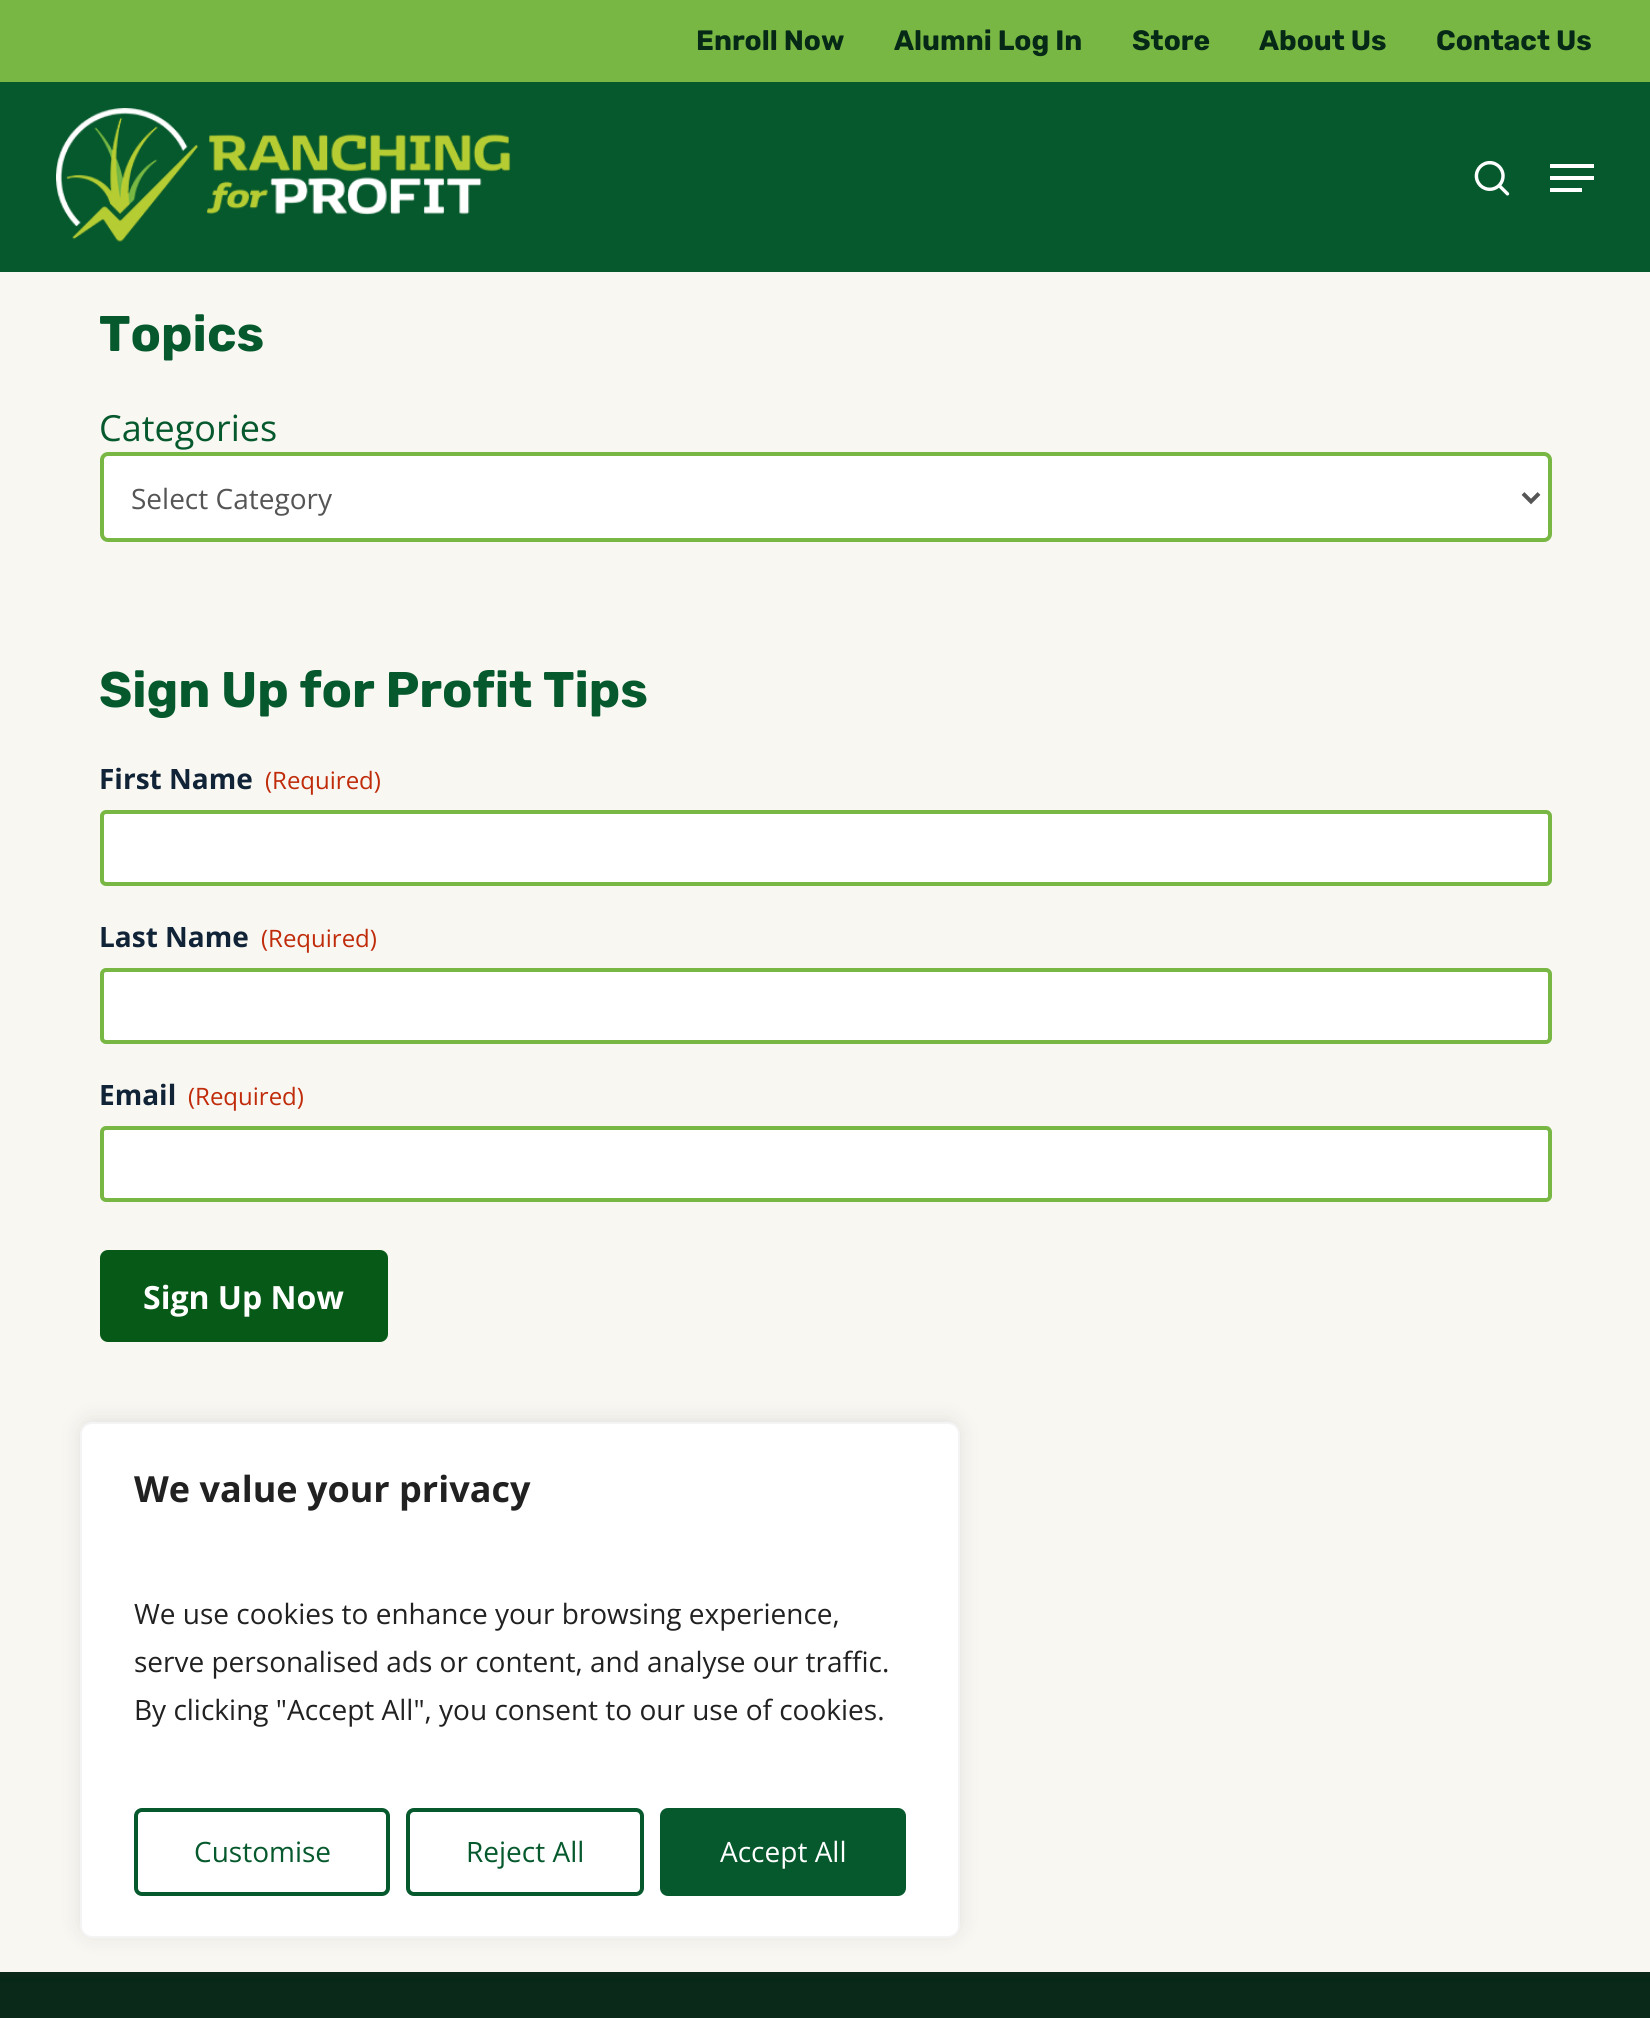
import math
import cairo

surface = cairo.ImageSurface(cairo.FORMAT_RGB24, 1650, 2018)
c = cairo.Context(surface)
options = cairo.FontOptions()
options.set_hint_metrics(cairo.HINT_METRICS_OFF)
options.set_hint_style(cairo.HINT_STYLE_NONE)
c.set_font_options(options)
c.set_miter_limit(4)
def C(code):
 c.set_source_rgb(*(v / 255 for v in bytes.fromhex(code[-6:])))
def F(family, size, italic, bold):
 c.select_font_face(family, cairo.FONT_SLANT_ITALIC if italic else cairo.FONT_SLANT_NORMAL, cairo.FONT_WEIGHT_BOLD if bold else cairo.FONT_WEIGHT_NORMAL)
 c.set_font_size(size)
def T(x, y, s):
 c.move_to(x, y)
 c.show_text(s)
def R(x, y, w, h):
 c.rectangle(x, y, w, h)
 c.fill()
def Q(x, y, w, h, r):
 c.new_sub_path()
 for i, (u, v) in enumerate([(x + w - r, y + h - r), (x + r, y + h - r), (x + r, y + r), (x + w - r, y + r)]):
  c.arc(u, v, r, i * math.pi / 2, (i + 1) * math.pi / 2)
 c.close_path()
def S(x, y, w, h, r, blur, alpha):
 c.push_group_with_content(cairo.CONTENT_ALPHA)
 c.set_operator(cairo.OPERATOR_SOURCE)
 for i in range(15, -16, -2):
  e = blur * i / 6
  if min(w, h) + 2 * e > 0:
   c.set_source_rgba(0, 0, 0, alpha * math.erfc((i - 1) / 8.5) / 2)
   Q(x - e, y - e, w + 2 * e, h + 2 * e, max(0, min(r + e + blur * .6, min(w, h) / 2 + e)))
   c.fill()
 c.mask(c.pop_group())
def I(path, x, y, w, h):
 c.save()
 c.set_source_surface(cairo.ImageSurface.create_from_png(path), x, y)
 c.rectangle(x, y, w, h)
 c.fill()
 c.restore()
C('f8f7f2')
c.paint()
C('06592d')
R(0,82,1650,190)
C('78b743')
R(0,0,1650,82)
F('Rubik',28,0,1)
C('052916')
T(696,50,'Enroll Now')
T(894,50,'Alumni Log In')
T(1132,50,'Store')
T(1259,50,'About Us')
T(1436,50,'Contact Us')
I('1.png',56,108,455,134)
I('2.png',1474,160,36,36)
C('ffffff')
R(1550,164,44,4)
R(1550,188,32,4)
R(1550,176,44,4)
F('Rubik',50,0,1)
C('06592d')
T(99,351,'Topics')
F('Open Sans',36,0,0)
T(99,441,'Categories')
C('ffffff')
Q(102,454,1448,86,6)
c.fill_preserve()
C('78b743')
c.set_line_width(4)
c.stroke()
c.new_path()
c.move_to(1523,493.5)
c.line_to(1531,501.5)
c.line_to(1539,493.5)
C('555555')
c.stroke()
F('Open Sans',28,0,0)
T(131,509,'Select Category')
F('Rubik',50,0,1)
C('06592d')
T(99,707,'Sign Up for Profit Tips')
F('Open Sans',28,0,1)
C('112337')
T(99,789,'First Name')
F('Open Sans',24,0,0)
C('c02b0a')
T(265,789,'(Required)')
C('ffffff')
Q(102,812,1448,72,4)
c.fill_preserve()
C('78b743')
c.stroke()
F('Open Sans',28,0,1)
C('112337')
T(99,947,'Last Name')
F('Open Sans',24,0,0)
C('c02b0a')
T(261,947,'(Required)')
C('ffffff')
Q(102,970,1448,72,4)
c.fill_preserve()
C('78b743')
c.stroke()
F('Open Sans',28,0,1)
C('112337')
T(99,1105,'Email')
F('Open Sans',24,0,0)
C('c02b0a')
T(188,1105,'(Required)')
C('ffffff')
Q(102,1128,1448,72,4)
c.fill_preserve()
C('78b743')
c.stroke()
C('065916')
Q(100,1250,288,92,8)
c.fill()
F('Open Sans',32,0,1)
C('ffffff')
T(143,1309,'Sign Up Now')
C('0b2918')
R(0,1972,1650,46)
C('052916')
R(0,1978,1650,4)
C('acabab')
S(80,1420,880,516,12,10,.3)
C('ffffff')
Q(81,1423,878,514,11)
c.fill_preserve()
C('f4f4f4')
c.set_line_width(2)
c.stroke()
F('Open Sans',36,0,1)
C('212121')
T(134,1502,'We value your privacy')
F('Open Sans',28,0,0)
T(134,1624,'We use cookies to enhance your browsing experience,')
T(134,1672,'serve personalised ads or content, and analyse our traffic.')
T(134,1720,'By clicking "Accept All", you consent to our use of cookies.')
Q(136,1810,252,84,6)
C('06592d')
c.set_line_width(4)
c.stroke()
T(194,1862,'Customise')
Q(408,1810,234,84,6)
c.stroke()
T(466,1862,'Reject All')
Q(662,1810,242,84,6)
c.fill_preserve()
c.stroke()
C('ffffff')
T(720,1862,'Accept All')
surface.write_to_png('o.png')
